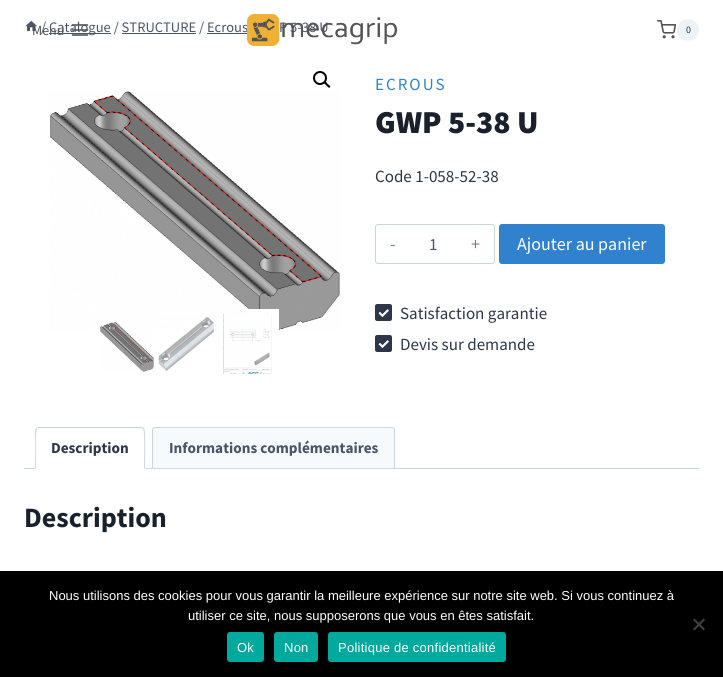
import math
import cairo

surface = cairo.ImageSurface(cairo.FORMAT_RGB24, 723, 677)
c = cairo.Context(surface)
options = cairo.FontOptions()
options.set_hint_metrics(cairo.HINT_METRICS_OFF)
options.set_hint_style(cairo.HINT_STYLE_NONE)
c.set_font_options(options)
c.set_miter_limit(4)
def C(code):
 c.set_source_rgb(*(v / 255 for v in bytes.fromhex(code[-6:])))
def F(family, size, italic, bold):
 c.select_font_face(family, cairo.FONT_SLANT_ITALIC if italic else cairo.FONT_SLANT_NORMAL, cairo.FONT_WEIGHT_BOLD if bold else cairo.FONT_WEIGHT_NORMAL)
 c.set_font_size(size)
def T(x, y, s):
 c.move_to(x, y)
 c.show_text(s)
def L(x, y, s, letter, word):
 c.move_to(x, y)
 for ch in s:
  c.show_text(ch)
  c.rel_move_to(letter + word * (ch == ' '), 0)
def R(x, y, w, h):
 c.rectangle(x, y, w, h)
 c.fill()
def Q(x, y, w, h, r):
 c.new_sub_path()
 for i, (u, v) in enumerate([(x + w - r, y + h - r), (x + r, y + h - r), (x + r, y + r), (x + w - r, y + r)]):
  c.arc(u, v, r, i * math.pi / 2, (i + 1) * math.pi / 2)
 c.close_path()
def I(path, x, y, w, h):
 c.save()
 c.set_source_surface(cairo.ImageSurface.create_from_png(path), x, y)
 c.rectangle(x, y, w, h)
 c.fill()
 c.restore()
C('ffffff')
c.paint()
I('1.png',25,20,12,12)
F('Source Sans Pro',14.5,0,0)
C('4a5568')
T(41,32,'/')
R(49,33,62,1)
T(49,32,'Catalogue / STRUCTURE / Ecrous')
T(279,32,'P 5-38 U')
R(122,33,74,1)
R(207,33,40,1)
c.new_path()
c.arc(320,78,6,0,2 * math.pi)
C('000000')
c.stroke()
c.new_path()
c.move_to(324,81.5)
c.curve_to(325.5,80.5,327,83,327.5,84)
c.curve_to(328.5,84.5,331,86,330,87.5)
c.curve_to(328.5,88.5,327,86,326.5,85.5)
c.curve_to(325.5,84.5,323,83,324,81.5)
c.close_path()
c.fill()
I('2.png',50,91,290,240)
I('3.png',100,322,54,50)
I('4.png',158,317,56,54)
C('ffffff')
R(248,309,31,22)
I('5.png',222,314,50,60)
F('Source Sans Pro',17,0,0)
C('3182ce')
L(375,90,'ECROUS',2,0)
F('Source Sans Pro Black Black',32,0,0)
C('1a202c')
T(375,133,'GWP 5-38 U')
F('Source Sans Pro',17,0,0)
C('2d3748')
T(375,182,'Code 1-058-52-38')
Q(375.5,224.5,119,39,2.5)
C('cbd5e0')
c.set_line_width(1)
c.stroke()
F('Source Sans Pro',18,0,0)
C('718096')
T(390,250,'-')
F('Source Sans Pro',17,0,0)
C('4a5568')
T(429,250,'1')
F('Source Sans Pro',18,0,0)
C('718096')
T(471,250,'+')
C('3182ce')
Q(499,224,166,40,3)
c.fill()
C('ffffff')
T(517,250,'Ajouter au panier')
I('6.png',375,304,17,17)
F('Source Sans Pro',17,0,0)
C('2d3748')
T(400,319,'Satisfaction garantie')
I('6.png',375,335,17,17)
T(400,350,'Devis sur demande')
C('f7fafc')
c.new_path()
c.move_to(155,427.5)
c.line_to(392,427.5)
c.curve_to(393.5,427.5,394.5,428.5,394.5,430)
c.line_to(394.5,468.5)
c.line_to(152.5,468.5)
c.line_to(152.5,430)
c.curve_to(152.5,428.5,153.5,427.5,155,427.5)
c.close_path()
c.fill_preserve()
C('cbd5e0')
c.stroke()
R(24,468,675,1)
C('ffffff')
c.new_path()
c.move_to(38,427)
c.line_to(142,427)
c.curve_to(143.5,427,145,428.5,145,430)
c.line_to(145,469)
c.line_to(35,469)
c.line_to(35,430)
c.curve_to(35,428.5,36.5,427,38,427)
c.close_path()
c.fill()
C('cbd5e0')
c.new_path()
c.move_to(38,427)
c.line_to(36,428)
c.line_to(37,429)
c.line_to(38,428)
c.line_to(142,428)
c.line_to(143,429)
c.line_to(144,428)
c.line_to(142,427)
c.close_path()
c.fill()
c.new_path()
c.move_to(145,469)
c.curve_to(145,464,146,430,144,428)
c.line_to(143,429)
c.curve_to(145,430,144,463,144,468)
c.close_path()
c.fill()
C('ffffff')
c.new_path()
c.move_to(145,469)
c.line_to(144,468)
c.line_to(36,468)
c.line_to(35,469)
c.close_path()
c.fill()
C('cbd5e0')
c.new_path()
c.move_to(35,469)
c.line_to(36,468)
c.curve_to(36,463,35,430,37,429)
c.line_to(36,428)
c.line_to(35,430)
c.close_path()
c.fill()
F('Source Sans Pro',15.25,0,1)
C('2d3748')
T(51,453,'Description')
C('4a5568')
T(169,453,'Informations complémentaires')
F('Source Sans Pro',28,0,1)
C('1a202c')
T(24,527,'Description')
F('Source Sans Pro',14,0,0)
C('545454')
T(32,35,'Menu')
I('7.png',71,24,18,12)
I('8.png',247,14,150,32)
I('9.png',657,20,19,19)
C('edf2f7')
c.arc(688,30,11,0,2 * math.pi)
c.fill()
F('Source Sans Pro',10,0,0)
C('2d3748')
T(686,33,'0')
C('000000')
R(0,571,723,106)
F('Liberation Sans',13,0,0)
C('ffffff')
T(49,600,'Nous utilisons des cookies pour vous garantir la meilleure expérience sur notre site web. Si vous continuez à')
T(188,620,'utiliser ce site, nous supposerons que vous en êtes satisfait.')
C('404040')
c.new_path()
c.move_to(703.5,618.5)
c.line_to(705,620)
c.line_to(694.5,630.5)
c.line_to(693,629)
c.close_path()
c.fill()
c.new_path()
c.move_to(693,620)
c.line_to(694.5,618.5)
c.line_to(705,629)
c.line_to(703.5,630.5)
c.close_path()
c.fill()
C('00a99d')
Q(227,632,37,30,3)
c.fill()
C('ffffff')
L(237,652,'Ok',.25,0)
C('00a99d')
Q(274,632,44,30,3)
c.fill()
C('ffffff')
L(284,652,'Non',.25,0)
C('00a99d')
Q(328,632,178,30,3)
c.fill()
C('ffffff')
L(338,652,'Politique de confidentialité',.25,0)
surface.write_to_png('o.png')
